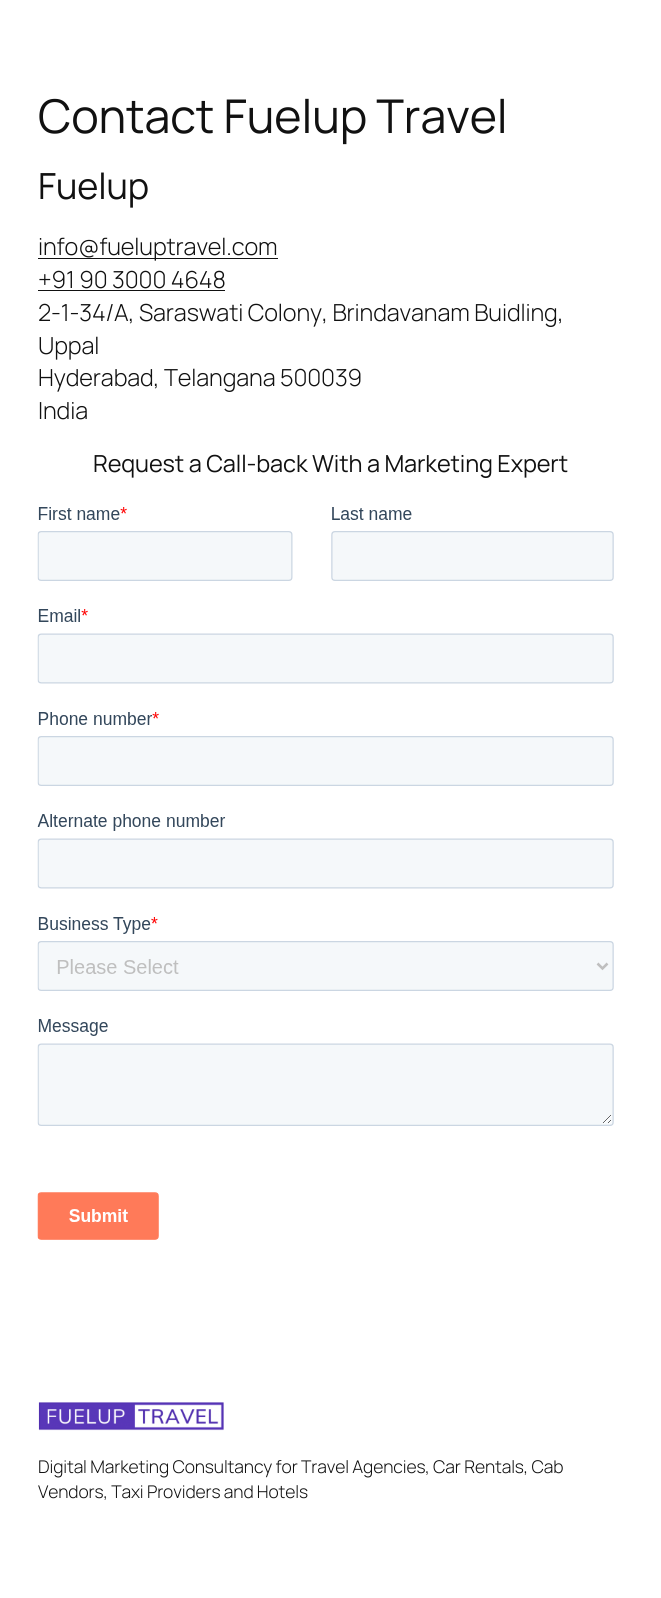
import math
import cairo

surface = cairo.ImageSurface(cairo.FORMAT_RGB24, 661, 1598)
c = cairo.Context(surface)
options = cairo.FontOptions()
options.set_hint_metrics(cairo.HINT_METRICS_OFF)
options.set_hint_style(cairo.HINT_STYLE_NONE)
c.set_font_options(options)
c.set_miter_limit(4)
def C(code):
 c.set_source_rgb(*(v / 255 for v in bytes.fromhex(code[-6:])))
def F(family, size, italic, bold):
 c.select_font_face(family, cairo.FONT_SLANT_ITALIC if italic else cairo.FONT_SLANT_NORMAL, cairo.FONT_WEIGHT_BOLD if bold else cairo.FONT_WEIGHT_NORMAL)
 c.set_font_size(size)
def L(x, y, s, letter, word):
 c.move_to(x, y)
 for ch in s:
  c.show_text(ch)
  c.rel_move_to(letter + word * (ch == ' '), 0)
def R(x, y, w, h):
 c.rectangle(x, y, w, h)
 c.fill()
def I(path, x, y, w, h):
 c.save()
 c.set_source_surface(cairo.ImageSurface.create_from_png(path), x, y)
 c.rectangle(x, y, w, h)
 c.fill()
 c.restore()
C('ffffff')
c.paint()
F('Manrope',46.5,0,0)
C('111111')
L(38,133,'Contact Fuelup Travel',-.12,0)
F('Manrope',36,0,0)
L(38,199,'Fuelup',-.12,0)
R(38,258,240,1)
F('Manrope Light',23.5,0,0)
L(38,255,'info@fueluptravel.com',-.12,0)
L(38,288,'+91 90 3000 4648',-.12,0)
R(38,290,187,1)
L(38,321,'2-1-34/A, Saraswati Colony, Brindavanam Buidling,',-.12,0)
L(38,354,'Uppal',-.12,0)
L(38,386,'Hyderabad, Telangana 500039',-.12,0)
L(38,419,'India',-.12,0)
F('Manrope',23.5,0,0)
L(93,472,'Request a Call-back With a Marketing Expert',-.12,0)
I('1.png',37,507,577,733)
I('2.png',38,1402,186,29)
F('Manrope Light',17.5,0,0)
L(38,1473,'Digital Marketing Consultancy for Travel Agencies, Car Rentals, Cab',-.12,0)
L(38,1498,'Vendors, Taxi Providers and Hotels',-.12,0)
surface.write_to_png('o.png')
